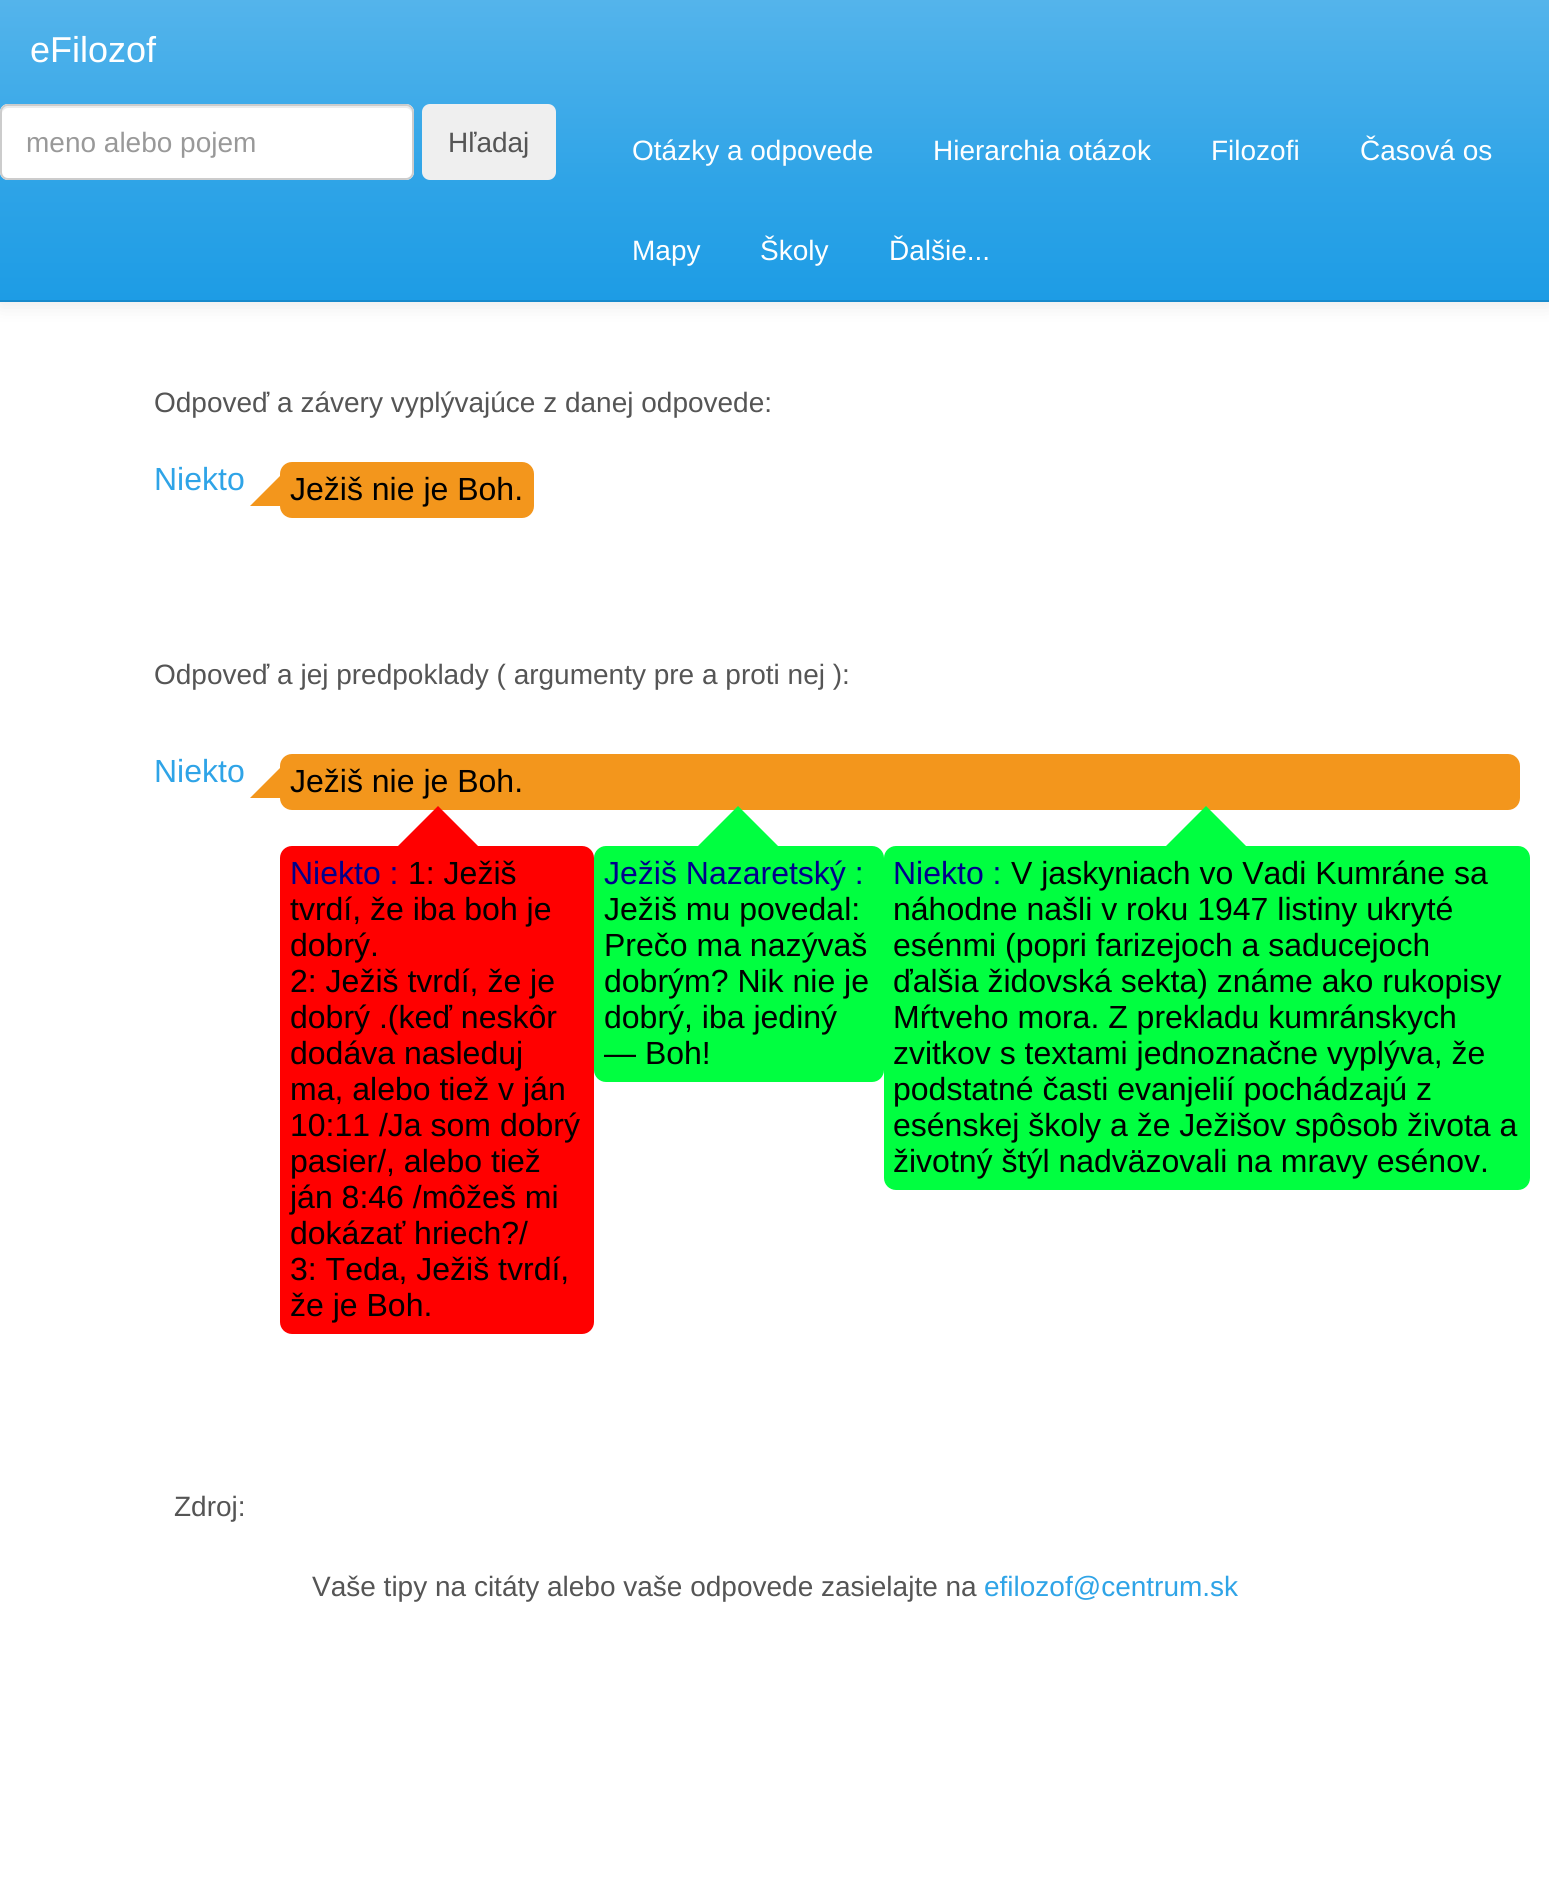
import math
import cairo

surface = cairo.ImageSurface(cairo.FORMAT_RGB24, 1549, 1880)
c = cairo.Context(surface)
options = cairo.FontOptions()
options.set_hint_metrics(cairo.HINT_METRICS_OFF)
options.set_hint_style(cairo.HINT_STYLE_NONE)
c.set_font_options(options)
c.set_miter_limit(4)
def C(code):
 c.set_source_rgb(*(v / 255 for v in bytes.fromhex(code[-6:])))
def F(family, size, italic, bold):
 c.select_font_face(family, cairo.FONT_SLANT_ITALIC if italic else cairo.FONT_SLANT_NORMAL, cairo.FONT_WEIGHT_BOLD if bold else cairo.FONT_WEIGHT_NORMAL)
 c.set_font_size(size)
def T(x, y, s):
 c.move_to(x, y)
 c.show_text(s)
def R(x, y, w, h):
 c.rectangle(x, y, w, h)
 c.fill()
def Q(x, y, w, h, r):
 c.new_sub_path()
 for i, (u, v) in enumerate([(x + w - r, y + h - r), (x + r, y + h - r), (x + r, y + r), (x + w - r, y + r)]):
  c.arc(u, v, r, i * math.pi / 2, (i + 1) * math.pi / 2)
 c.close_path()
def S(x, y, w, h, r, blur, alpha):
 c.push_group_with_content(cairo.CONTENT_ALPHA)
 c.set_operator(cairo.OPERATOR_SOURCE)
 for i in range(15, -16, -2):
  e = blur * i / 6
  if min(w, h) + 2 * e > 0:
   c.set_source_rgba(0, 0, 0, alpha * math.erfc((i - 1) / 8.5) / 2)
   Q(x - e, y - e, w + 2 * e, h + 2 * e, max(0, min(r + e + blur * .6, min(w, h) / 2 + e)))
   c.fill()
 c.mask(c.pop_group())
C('ffffff')
c.paint()
C('000000')
S(0,2,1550,302,0,10,.1)
gradient = cairo.LinearGradient(775,0,775,300)
gradient.add_color_stop_rgba(0,0.329,0.706,0.922,1)
gradient.add_color_stop_rgba(.6,0.184,0.643,0.906,1)
gradient.add_color_stop_rgba(1,0.114,0.612,0.898,1)
c.set_source(gradient)
R(0,0,1549,300)
C('178acc')
R(0,300,1549,2)
F('Liberation Sans',36,0,0)
C('ffffff')
T(30,62,'eFilozof')
Q(0,104,414,76,8)
c.fill()
C('ececec')
c.new_path()
c.move_to(8,108)
c.line_to(406,108)
c.curve_to(409,108,412,111,412,114)
c.curve_to(412,110,411,106,406,106)
c.line_to(8,106)
c.curve_to(3,106,2,110,2,114)
c.curve_to(2,111,5,108,8,108)
c.close_path()
c.fill()
Q(1,105,412,74,7)
C('cccccc')
c.stroke()
F('Liberation Sans',28,0,0)
C('999999')
T(26,152,'meno alebo pojem')
C('efefef')
Q(422,104,134,76,8)
c.fill()
C('555555')
T(448,152,'Hľadaj')
C('ffffff')
T(632,160,'Otázky a odpovede')
T(933,160,'Hierarchia otázok')
T(1211,160,'Filozofi')
T(1360,160,'Časová os')
T(632,260,'Mapy')
T(760,260,'Školy')
T(889,260,'Ďalšie...')
C('555555')
T(154,412,'Odpoveď a závery vyplývajúce z danej odpovede:')
F('Liberation Sans',32,0,0)
C('2fa4e7')
T(154,490,'Niekto')
C('f3961c')
Q(280,462,254,56,12)
c.fill()
c.new_path()
c.move_to(280,476)
c.line_to(280,506)
c.line_to(250,506)
c.close_path()
c.fill()
C('000000')
T(290,500,'Ježiš nie je Boh.')
F('Liberation Sans',28,0,0)
C('555555')
T(154,684,'Odpoveď a jej predpoklady ( argumenty pre a proti nej ):')
F('Liberation Sans',32,0,0)
C('2fa4e7')
T(154,782,'Niekto')
C('f3961c')
Q(280,754,1240,56,12)
c.fill()
c.new_path()
c.move_to(280,768)
c.line_to(280,798)
c.line_to(250,798)
c.close_path()
c.fill()
C('000000')
T(290,792,'Ježiš nie je Boh.')
C('ff0000')
Q(280,846,314,488,12)
c.fill()
c.new_path()
c.move_to(478,846)
c.line_to(398,846)
c.line_to(438,806)
c.close_path()
c.fill()
C('00008b')
T(290,884,'Niekto :')
C('000000')
T(408,884,'1: Ježiš')
T(290,920,'tvrdí, že iba boh je')
T(290,956,'dobrý.')
T(290,992,'2: Ježiš tvrdí, že je')
T(290,1028,'dobrý .(keď neskôr')
T(290,1064,'dodáva nasleduj')
T(290,1100,'ma, alebo tiež v ján')
T(290,1136,'10:11 /Ja som dobrý')
T(290,1172,'pasier/, alebo tiež')
T(290,1208,'ján 8:46 /môžeš mi')
T(290,1244,'dokázať hriech?/')
T(290,1280,'3: Teda, Ježiš tvrdí,')
T(290,1316,'že je Boh.')
C('00ff40')
Q(594,846,290,236,12)
c.fill()
c.new_path()
c.move_to(778,846)
c.line_to(698,846)
c.line_to(738,806)
c.close_path()
c.fill()
C('00008b')
T(604,884,'Ježiš Nazaretský :')
C('000000')
T(604,920,'Ježiš mu povedal:')
T(604,956,'Prečo ma nazývaš')
T(604,992,'dobrým? Nik nie je')
T(604,1028,'dobrý, iba jediný')
T(604,1064,'— Boh!')
C('00ff40')
Q(884,846,646,344,12)
c.fill()
c.new_path()
c.move_to(1246,846)
c.line_to(1166,846)
c.line_to(1206,806)
c.close_path()
c.fill()
C('00008b')
T(893,884,'Niekto :')
C('000000')
T(1011,884,'V jaskyniach vo Vadi Kumráne sa')
T(893,920,'náhodne našli v roku 1947 listiny ukryté')
T(893,956,'esénmi (popri farizejoch a saducejoch')
T(893,992,'ďalšia židovská sekta) známe ako rukopisy')
T(893,1028,'Mŕtveho mora. Z prekladu kumránskych')
T(893,1064,'zvitkov s textami jednoznačne vyplýva, že')
T(893,1100,'podstatné časti evanjelií pochádzajú z')
T(893,1136,'esénskej školy a že Ježišov spôsob života a')
T(893,1172,'životný štýl nadväzovali na mravy esénov.')
F('Liberation Sans',28,0,0)
C('555555')
T(174,1516,'Zdroj:')
T(312,1596,'Vaše tipy na citáty alebo vaše odpovede zasielajte na')
C('2fa4e7')
T(984,1596,'efilozof@centrum.sk')
surface.write_to_png('o.png')
